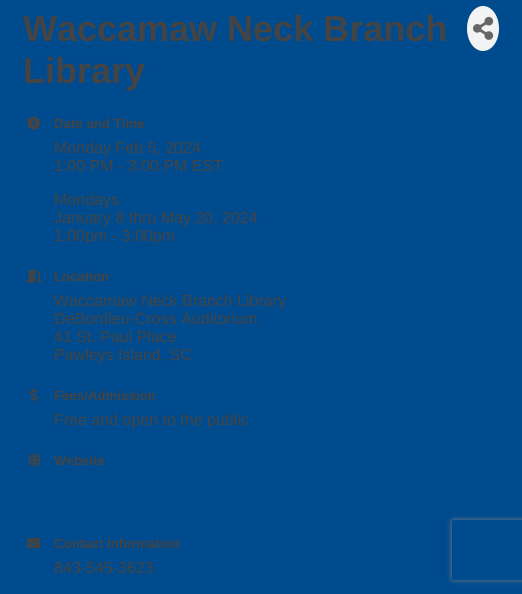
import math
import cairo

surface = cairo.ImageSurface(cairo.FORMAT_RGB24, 522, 594)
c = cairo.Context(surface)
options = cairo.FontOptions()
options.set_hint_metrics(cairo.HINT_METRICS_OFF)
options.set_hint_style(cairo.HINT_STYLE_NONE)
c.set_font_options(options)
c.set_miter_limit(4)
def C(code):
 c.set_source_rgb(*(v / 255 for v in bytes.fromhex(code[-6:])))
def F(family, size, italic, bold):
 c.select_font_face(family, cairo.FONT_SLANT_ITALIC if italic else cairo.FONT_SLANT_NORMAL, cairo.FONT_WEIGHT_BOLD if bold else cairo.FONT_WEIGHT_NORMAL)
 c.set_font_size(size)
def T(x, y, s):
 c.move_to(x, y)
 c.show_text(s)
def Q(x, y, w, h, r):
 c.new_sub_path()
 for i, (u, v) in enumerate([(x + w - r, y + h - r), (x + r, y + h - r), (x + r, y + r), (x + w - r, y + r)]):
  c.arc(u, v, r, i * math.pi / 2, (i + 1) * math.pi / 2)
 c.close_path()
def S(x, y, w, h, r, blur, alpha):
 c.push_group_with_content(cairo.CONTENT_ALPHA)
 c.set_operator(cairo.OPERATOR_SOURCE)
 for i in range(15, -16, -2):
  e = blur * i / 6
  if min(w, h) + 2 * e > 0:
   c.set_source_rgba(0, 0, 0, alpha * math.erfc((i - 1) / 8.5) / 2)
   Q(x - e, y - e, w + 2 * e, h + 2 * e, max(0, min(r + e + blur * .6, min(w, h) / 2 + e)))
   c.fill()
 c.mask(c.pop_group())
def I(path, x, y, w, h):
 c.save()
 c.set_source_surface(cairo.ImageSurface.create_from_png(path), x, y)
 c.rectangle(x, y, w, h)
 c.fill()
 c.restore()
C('004b8e')
c.paint()
F('Liberation Sans',36,0,1)
C('444444')
T(23,41,'Waccamaw Neck Branch')
T(23,83,'Library')
C('f3f3f3')
c.new_path()
c.move_to(483,6)
c.curve_to(492,6,499,16,499,28.5)
c.curve_to(499,41,492,51,483,51)
c.curve_to(474,51,467,41,467,28.5)
c.curve_to(467,16,474,6,483,6)
c.close_path()
c.fill()
I('1.png',473,16,21,24)
I('2.png',27,116,13,14)
F('Liberation Sans',13.25,0,1)
C('444444')
T(54,128,'Date and Time')
F('Liberation Sans',16,0,0)
T(54,153,'Monday Feb 5, 2024')
T(54,171,'1:00 PM - 3:00 PM EST')
T(54,205,'Mondays')
T(54,223,'January 8 thru May 20, 2024')
T(54,241,'1:00pm - 3:00pm')
I('3.png',26,269,17,14)
F('Liberation Sans',13.25,0,1)
T(54,281,'Location')
F('Liberation Sans',16,0,0)
T(54,306,'Waccamaw Neck Branch Library')
T(54,324,'DeBordieu-Cross Auditorium')
T(54,342,'41 St. Paul Place')
T(54,360,'Pawleys Island, SC')
I('4.png',30,388,8,14)
F('Liberation Sans',13.25,0,1)
T(54,400,'Fees/Admission')
F('Liberation Sans',16,0,0)
T(54,425,'Free and open to the public')
I('5.png',28,453,13,14)
F('Liberation Sans',13.25,0,1)
T(54,465,'Website')
I('6.png',27,538,14,10)
T(54,548,'Contact Information')
F('Liberation Sans',16,0,0)
T(54,573,'843-545-3623')
c.save()
c.set_fill_rule(cairo.FILL_RULE_EVEN_ODD)
c.new_path()
c.move_to(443,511)
c.line_to(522,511)
c.line_to(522,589)
c.line_to(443,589)
c.close_path()
c.move_to(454,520)
c.line_to(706,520)
c.curve_to(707,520,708,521,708,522)
c.line_to(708,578)
c.curve_to(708,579,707,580,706,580)
c.line_to(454,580)
c.curve_to(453,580,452,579,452,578)
c.line_to(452,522)
c.curve_to(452,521,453,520,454,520)
c.close_path()
c.clip()
C('808080')
S(452,520,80,60,2,2.5,1)
c.restore()
surface.write_to_png('o.png')
